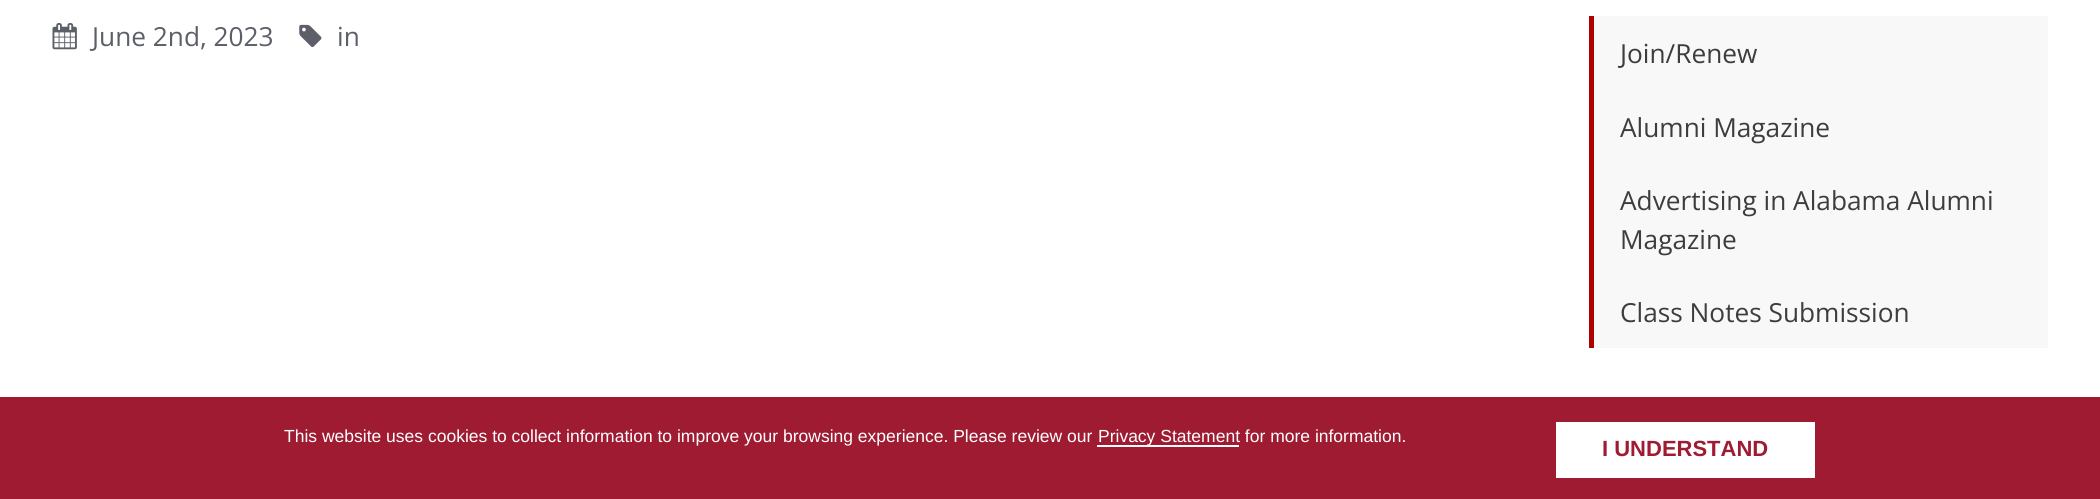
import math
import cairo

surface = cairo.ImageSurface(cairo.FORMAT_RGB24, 2100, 499)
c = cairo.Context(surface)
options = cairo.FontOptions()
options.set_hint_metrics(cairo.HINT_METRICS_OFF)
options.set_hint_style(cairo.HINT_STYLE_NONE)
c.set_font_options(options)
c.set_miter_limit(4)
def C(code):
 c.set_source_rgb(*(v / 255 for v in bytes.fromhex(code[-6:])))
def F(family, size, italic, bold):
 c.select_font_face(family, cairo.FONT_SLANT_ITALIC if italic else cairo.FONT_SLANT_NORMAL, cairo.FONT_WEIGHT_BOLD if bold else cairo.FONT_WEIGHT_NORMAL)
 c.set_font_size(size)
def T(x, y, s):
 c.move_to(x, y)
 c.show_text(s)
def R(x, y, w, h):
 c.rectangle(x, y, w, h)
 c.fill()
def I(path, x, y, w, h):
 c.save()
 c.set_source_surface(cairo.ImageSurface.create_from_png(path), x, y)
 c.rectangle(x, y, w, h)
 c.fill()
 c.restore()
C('ffffff')
c.paint()
I('1.png',52,23,25,27)
F('Open Sans',26.25,0,0)
C('5c5f68')
T(92,46,'June 2nd, 2023')
I('2.png',299,24,23,23)
T(337,46,'in')
C('f8f8f8')
R(1594,16,454,332)
C('ae0000')
R(1589,16,5,332)
C('3d3d3d')
T(1620,63,'Join/Renew')
T(1620,137,'Alumni Magazine')
T(1620,210,'Advertising in Alabama Alumni')
T(1620,249,'Magazine')
T(1620,322,'Class Notes Submission')
C('9e1b32')
R(0,397,2100,102)
F('Liberation Sans',17.5,0,0)
C('ffffff')
T(284,442,'This website uses cookies to collect information to improve your browsing experience. Please review our')
R(1097,445,142,2)
T(1098,442,'Privacy Statement for more information.')
R(1556,422,259,56)
F('Liberation Sans',22,0,1)
C('9e1b32')
T(1602,456,'I UNDERSTAND')
surface.write_to_png('o.png')
